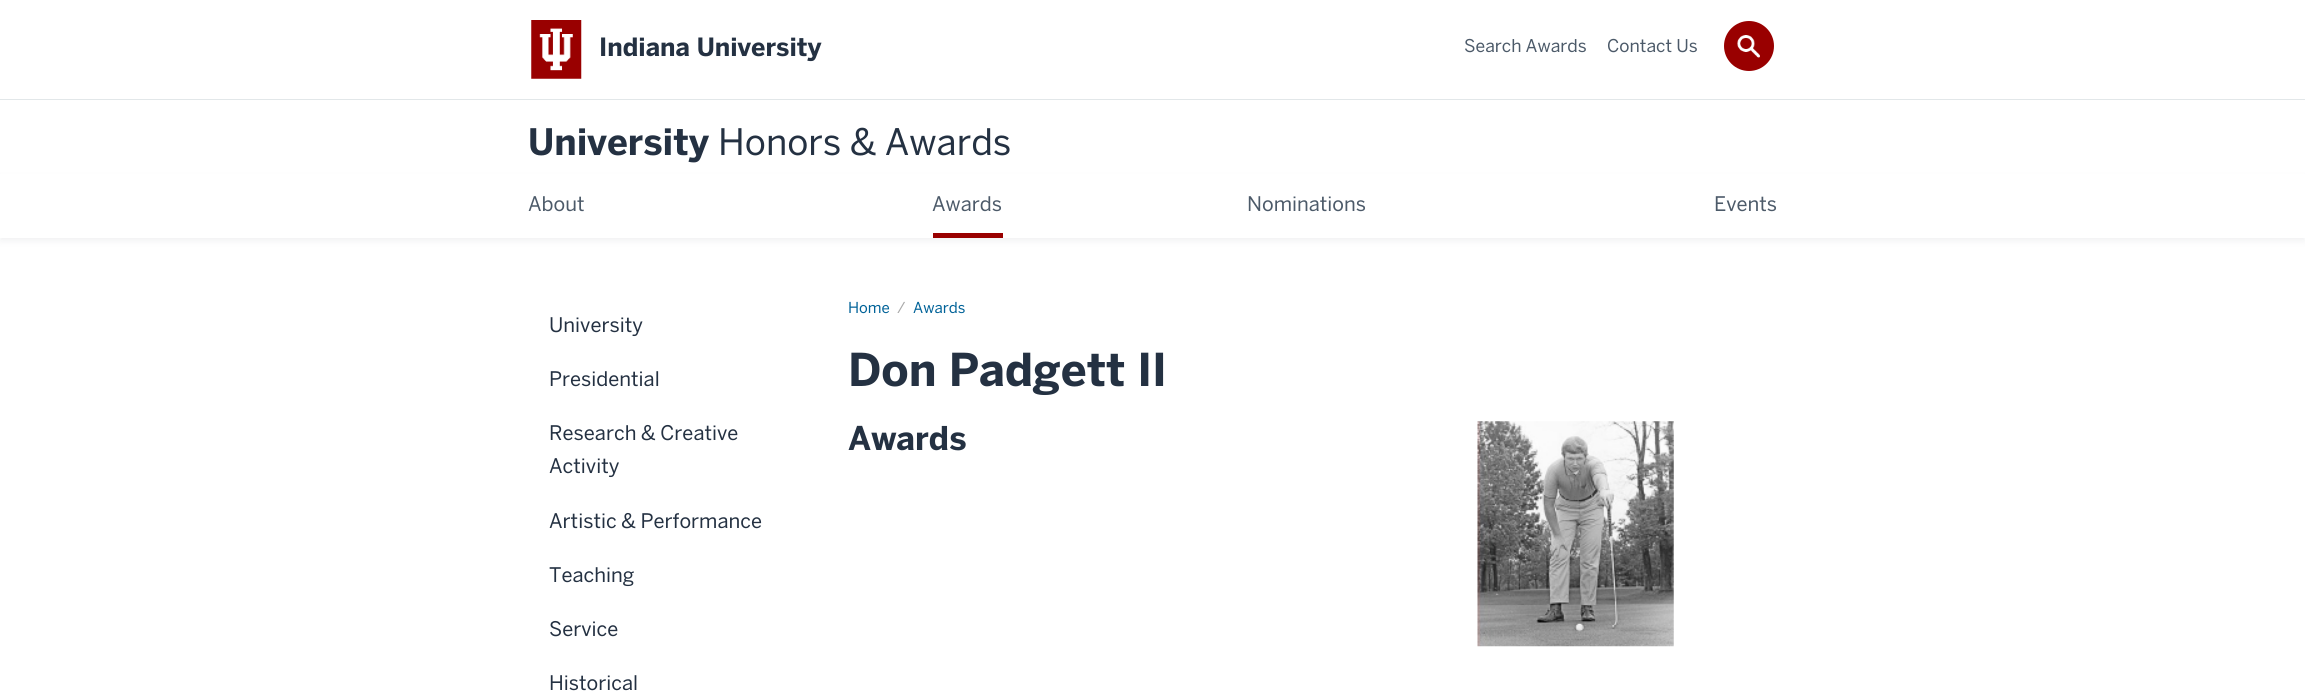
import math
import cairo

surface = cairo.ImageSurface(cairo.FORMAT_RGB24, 2305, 700)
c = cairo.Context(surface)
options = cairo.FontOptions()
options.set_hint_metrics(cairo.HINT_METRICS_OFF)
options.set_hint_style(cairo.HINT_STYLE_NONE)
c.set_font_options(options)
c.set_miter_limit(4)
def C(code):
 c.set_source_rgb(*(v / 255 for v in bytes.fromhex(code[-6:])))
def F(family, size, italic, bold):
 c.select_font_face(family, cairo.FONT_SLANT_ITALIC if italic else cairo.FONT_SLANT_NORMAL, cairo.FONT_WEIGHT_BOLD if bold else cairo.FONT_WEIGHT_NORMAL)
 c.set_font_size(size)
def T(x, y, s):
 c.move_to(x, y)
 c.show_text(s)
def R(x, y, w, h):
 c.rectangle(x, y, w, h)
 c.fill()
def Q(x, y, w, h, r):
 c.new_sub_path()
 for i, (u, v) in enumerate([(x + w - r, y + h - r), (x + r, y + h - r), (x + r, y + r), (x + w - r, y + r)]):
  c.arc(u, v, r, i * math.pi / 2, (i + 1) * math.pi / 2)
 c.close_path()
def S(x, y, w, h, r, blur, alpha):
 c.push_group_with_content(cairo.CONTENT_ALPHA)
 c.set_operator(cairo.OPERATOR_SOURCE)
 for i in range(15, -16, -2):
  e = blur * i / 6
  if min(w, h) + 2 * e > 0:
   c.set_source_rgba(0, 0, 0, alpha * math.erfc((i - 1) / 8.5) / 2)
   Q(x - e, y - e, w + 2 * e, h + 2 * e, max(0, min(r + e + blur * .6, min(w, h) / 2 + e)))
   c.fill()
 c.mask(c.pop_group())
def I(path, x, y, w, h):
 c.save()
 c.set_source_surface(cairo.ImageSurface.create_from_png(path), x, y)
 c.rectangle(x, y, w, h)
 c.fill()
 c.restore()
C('ffffff')
c.paint()
C('e2e7e9')
R(0,99,2305,1)
I('1.png',531,20,51,59)
F('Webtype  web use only',25,0,1)
C('243142')
T(599,56,'Indiana University')
F('Webtype  web use only',17.5,0,0)
C('4c5a69')
T(1464,52,'Search Awards')
T(1607,52,'Contact Us')
C('990000')
c.new_path()
c.arc(1749,46,25,0,2 * math.pi)
c.fill()
I('2.png',1737,35,23,23)
F('Webtype  web use only',36.25,0,1)
C('243142')
T(528,155,'University')
F('Webtype  web use only',36.25,0,0)
T(718,155,'Honors & Awards')
c.save()
c.set_fill_rule(cairo.FILL_RULE_EVEN_ODD)
c.new_path()
c.move_to(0,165)
c.line_to(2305,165)
c.line_to(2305,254)
c.line_to(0,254)
c.close_path()
c.move_to(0,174)
c.line_to(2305,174)
c.line_to(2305,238)
c.line_to(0,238)
c.close_path()
c.clip()
C('243142')
S(0,178,2305,63,0,4,.07)
c.restore()
F('Webtype  web use only',20,0,0)
C('4c5a69')
T(528,211,'About')
T(932,211,'Awards')
C('990000')
R(933,233,70,5)
C('4c5a69')
T(1247,211,'Nominations')
T(1714,211,'Events')
F('Webtype  web use only',15,0,0)
C('006298')
T(848,313,'Home')
C('aaaaaa')
T(897,313,'/')
C('006298')
T(913,313,'Awards')
F('Webtype  web use only',20,0,0)
C('243142')
T(549,332,'University')
T(549,386,'Presidential')
T(549,440,'Research & Creative')
T(549,473,'Activity')
T(549,528,'Artistic & Performance')
T(549,582,'Teaching')
T(549,636,'Service')
T(549,690,'Historical')
F('Webtype  web use only',45,0,1)
T(848,386,'Don Padgett II')
F('Webtype  web use only',32.5,0,1)
T(848,450,'Awards')
I('3.png',1477,421,197,226)
surface.write_to_png('o.png')
